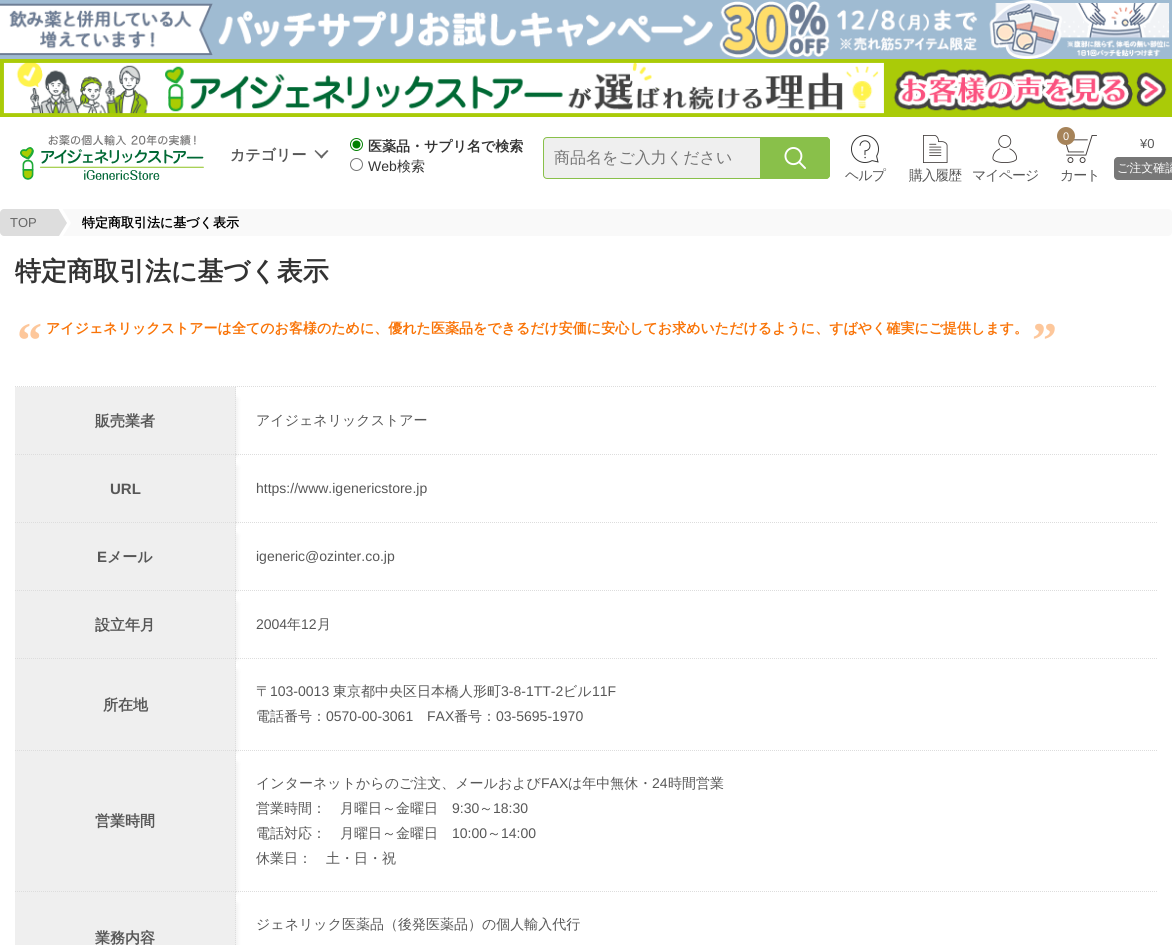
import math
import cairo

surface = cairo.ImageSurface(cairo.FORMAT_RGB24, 1172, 945)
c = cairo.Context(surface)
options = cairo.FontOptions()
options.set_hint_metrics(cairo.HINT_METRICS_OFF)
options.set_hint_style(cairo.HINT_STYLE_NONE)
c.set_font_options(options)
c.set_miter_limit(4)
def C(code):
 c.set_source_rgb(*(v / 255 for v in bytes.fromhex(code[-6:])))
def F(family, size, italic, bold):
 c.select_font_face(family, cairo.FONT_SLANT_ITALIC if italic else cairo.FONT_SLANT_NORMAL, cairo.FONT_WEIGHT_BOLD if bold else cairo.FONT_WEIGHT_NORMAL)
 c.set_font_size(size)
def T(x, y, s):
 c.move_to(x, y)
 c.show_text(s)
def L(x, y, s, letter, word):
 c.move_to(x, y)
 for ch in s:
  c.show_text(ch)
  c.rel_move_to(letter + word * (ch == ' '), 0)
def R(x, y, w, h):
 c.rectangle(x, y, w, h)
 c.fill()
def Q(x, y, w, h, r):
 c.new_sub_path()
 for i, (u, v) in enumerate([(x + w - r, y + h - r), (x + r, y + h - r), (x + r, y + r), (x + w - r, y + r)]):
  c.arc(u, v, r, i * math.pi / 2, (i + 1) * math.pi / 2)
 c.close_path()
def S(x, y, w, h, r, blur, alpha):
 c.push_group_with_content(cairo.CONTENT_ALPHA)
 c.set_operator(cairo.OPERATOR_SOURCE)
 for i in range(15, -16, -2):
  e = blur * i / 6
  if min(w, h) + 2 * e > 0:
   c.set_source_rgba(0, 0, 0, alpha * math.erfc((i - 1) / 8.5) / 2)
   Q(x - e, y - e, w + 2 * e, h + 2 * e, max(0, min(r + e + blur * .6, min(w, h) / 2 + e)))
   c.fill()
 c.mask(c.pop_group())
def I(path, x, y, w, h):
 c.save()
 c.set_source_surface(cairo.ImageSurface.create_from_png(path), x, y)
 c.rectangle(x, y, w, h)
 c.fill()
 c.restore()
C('ffffff')
c.paint()
I('1.png',0,0,1172,59)
I('2.png',0,59,1172,58)
I('3.png',20,135,184,45)
F('WenQuanYi Zen Hei',15,0,1)
C('575757')
T(230,160,'カテゴリー')
C('666666')
c.new_path()
c.move_to(327,150)
c.line_to(328.5,151)
c.line_to(321.5,158.5)
c.line_to(320,157)
c.close_path()
c.fill()
c.new_path()
c.move_to(315.5,150)
c.line_to(323,157)
c.line_to(321.5,158.5)
c.line_to(314.5,151)
c.close_path()
c.fill()
c.arc(356.5,144.5,6,0,2 * math.pi)
C('008000')
c.set_line_width(1)
c.stroke()
c.arc(356.5,144.5,4,0,2 * math.pi)
c.fill()
F('WenQuanYi Zen Hei',14,0,1)
C('333333')
T(368,151,'医薬品・サプリ名で検索')
c.new_path()
c.arc(356.5,164.5,6,0,2 * math.pi)
C('767676')
c.stroke()
F('Liberation Sans',14,0,0)
C('333333')
T(368,171,'Web')
F('WenQuanYi Zen Hei Medium',14,0,0)
T(397,171,'検索')
C('efefef')
Q(543.5,137.5,286,41,3.5)
c.fill_preserve()
C('89c04a')
c.stroke()
F('WenQuanYi Zen Hei Medium',16,0,0)
C('757575')
T(554,163,'商品名をご入力ください')
C('89c04a')
c.new_path()
c.move_to(760,137)
c.line_to(826,137)
c.curve_to(828,137,830,139,830,141)
c.line_to(830,175)
c.curve_to(830,177,828,179,826,179)
c.line_to(760,179)
c.close_path()
c.fill()
I('4.png',784,147,22,22)
I('5.png',851,135,28,28)
F('WenQuanYi Zen Hei Medium',14,0,0)
C('575757')
L(845,180,'ヘルプ',-1,0)
I('6.png',923,135,25,28)
L(909,180,'購入履歴',-1,0)
I('7.png',992,135,25,28)
L(972,180,'マイページ',-1,0)
I('8.png',1065,135,32,28)
C('a68359')
c.arc(1066,136,9,0,2 * math.pi)
c.fill()
F('Liberation Sans',11,0,0)
C('ffffff')
L(1063,140,'0',-1,0)
F('WenQuanYi Zen Hei Medium',14,0,0)
C('575757')
L(1060,180,'カート',-1,0)
F('Liberation Sans',13,0,0)
T(1140,148,'¥0')
C('777777')
Q(1114,157,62,23,4)
c.fill()
F('WenQuanYi Zen Hei Medium',12,0,0)
C('ffffff')
T(1117,172,'ご注文確認')
C('f9f9f9')
Q(0,209,1172,27,4)
c.fill()
C('dddddd')
c.new_path()
c.move_to(4,209)
c.line_to(37,209)
c.line_to(37,236)
c.line_to(4,236)
c.curve_to(2,236,0,234,0,232)
c.line_to(0,213)
c.curve_to(0,211,2,209,4,209)
c.close_path()
c.fill()
C('ffffff')
c.new_path()
c.move_to(62.5,209)
c.line_to(71,223)
c.line_to(63,236)
c.line_to(41,236)
c.line_to(41,209)
c.close_path()
c.fill()
C('dddddd')
c.new_path()
c.move_to(58.5,209)
c.line_to(67,223)
c.line_to(59,236)
c.line_to(37,236)
c.line_to(37,209)
c.close_path()
c.fill()
F('Liberation Sans',13,0,0)
C('666666')
T(10,227,'TOP')
F('WenQuanYi Zen Hei',13,0,1)
C('000000')
T(82,227,'特定商取引法に基づく表示')
F('WenQuanYi Zen Hei',26,0,1)
C('333333')
T(15,280,'特定商取引法に基づく表示')
F('Liberation Serif',50,0,1)
C('fdc79b')
T(17,357,'“')
F('WenQuanYi Zen Hei',14,0,1)
C('f97306')
T(46,333,'アイジェネリックストアーは全てのお客様のために、優れた医薬品をできるだけ安価に安心してお求めいただけるように、すばやく確実にご提供します。')
F('Liberation Serif',50,0,1)
C('fdc79b')
T(1032,357,'”')
c.new_path()
c.move_to(15,386.5)
c.line_to(1157,386.5)
C('dddddd')
c.set_dash([1,1])
c.stroke()
C('000000')
S(27,399,209,56,0,3,.1)
C('efefef')
R(15,387,221,68)
c.new_path()
c.move_to(235.5,387)
c.line_to(235.5,455)
C('dddddd')
c.stroke()
c.new_path()
c.move_to(15,454.5)
c.line_to(236,454.5)
c.stroke()
F('WenQuanYi Zen Hei',15,0,1)
C('575757')
T(95,426,'販売業者')
c.new_path()
c.move_to(236,454.5)
c.line_to(1157,454.5)
C('dddddd')
c.stroke()
F('WenQuanYi Zen Hei Medium',14,0,0)
C('575757')
T(256,425,'アイジェネリックストアー')
C('000000')
S(27,467,209,56,0,3,.1)
C('efefef')
R(15,455,221,68)
c.new_path()
c.move_to(235.5,455)
c.line_to(235.5,523)
C('dddddd')
c.stroke()
c.new_path()
c.move_to(15,522.5)
c.line_to(236,522.5)
c.stroke()
F('Liberation Sans',15,0,1)
C('575757')
T(110,494,'URL')
c.new_path()
c.move_to(236,522.5)
c.line_to(1157,522.5)
C('dddddd')
c.stroke()
F('Liberation Sans',14,0,0)
C('575757')
T(256,493,'https://www.igenericstore.jp')
C('000000')
S(27,535,209,56,0,3,.1)
C('efefef')
R(15,523,221,68)
c.new_path()
c.move_to(235.5,523)
c.line_to(235.5,591)
C('dddddd')
c.stroke()
c.new_path()
c.move_to(15,590.5)
c.line_to(236,590.5)
c.stroke()
F('Liberation Sans',15,0,1)
C('575757')
T(97,562,'E')
F('WenQuanYi Zen Hei',15,0,1)
T(107,562,'メール')
c.new_path()
c.move_to(236,590.5)
c.line_to(1157,590.5)
C('dddddd')
c.stroke()
F('Liberation Sans',14,0,0)
C('575757')
T(256,561,'igeneric@ozinter.co.jp')
C('000000')
S(27,603,209,56,0,3,.1)
C('efefef')
R(15,591,221,68)
c.new_path()
c.move_to(235.5,591)
c.line_to(235.5,659)
C('dddddd')
c.stroke()
c.new_path()
c.move_to(15,658.5)
c.line_to(236,658.5)
c.stroke()
F('WenQuanYi Zen Hei',15,0,1)
C('575757')
T(95,630,'設立年月')
c.new_path()
c.move_to(236,658.5)
c.line_to(1157,658.5)
C('dddddd')
c.stroke()
F('Liberation Sans',14,0,0)
C('575757')
T(256,629,'2004')
F('WenQuanYi Zen Hei Medium',14,0,0)
T(287,629,'年')
F('Liberation Sans',14,0,0)
T(301,629,'12')
F('WenQuanYi Zen Hei Medium',14,0,0)
T(317,629,'月')
C('000000')
S(27,671,209,80,0,3,.1)
C('efefef')
R(15,659,221,92)
c.new_path()
c.move_to(235.5,659)
c.line_to(235.5,751)
C('dddddd')
c.stroke()
c.new_path()
c.move_to(15,750.5)
c.line_to(236,750.5)
c.stroke()
F('WenQuanYi Zen Hei',15,0,1)
C('575757')
T(103,710,'所在地')
c.new_path()
c.move_to(236,750.5)
c.line_to(1157,750.5)
C('dddddd')
c.stroke()
F('WenQuanYi Zen Hei Medium',14,0,0)
C('575757')
T(256,696,'〒')
F('Liberation Sans',14,0,0)
T(270,696,'103-0013')
F('WenQuanYi Zen Hei Medium',14,0,0)
T(333,696,'東京都中央区日本橋人形町')
F('Liberation Sans',14,0,0)
T(501,696,'3-8-1TT-2')
F('WenQuanYi Zen Hei Medium',14,0,0)
T(563,696,'ビル')
F('Liberation Sans',14,0,0)
T(592,696,'11F')
F('WenQuanYi Zen Hei Medium',14,0,0)
T(256,721,'電話番号：')
F('Liberation Sans',14,0,0)
T(326,721,'0570-00-3061')
T(427,721,'FAX')
F('WenQuanYi Zen Hei Medium',14,0,0)
T(454,721,'番号：')
F('Liberation Sans',14,0,0)
T(496,721,'03-5695-1970')
C('000000')
S(27,763,209,129,0,3,.1)
C('efefef')
R(15,751,221,141)
c.new_path()
c.move_to(235.5,751)
c.line_to(235.5,892)
C('dddddd')
c.stroke()
c.new_path()
c.move_to(15,891.5)
c.line_to(236,891.5)
c.stroke()
F('WenQuanYi Zen Hei',15,0,1)
C('575757')
T(95,826,'営業時間')
c.new_path()
c.move_to(236,891.5)
c.line_to(1157,891.5)
C('dddddd')
c.stroke()
F('WenQuanYi Zen Hei Medium',14,0,0)
C('575757')
T(256,788,'インターネットからのご注文、メールおよび')
F('Liberation Sans',14,0,0)
T(541,788,'FAX')
F('WenQuanYi Zen Hei Medium',14,0,0)
T(568,788,'は年中無休・')
F('Liberation Sans',14,0,0)
T(652,788,'24')
F('WenQuanYi Zen Hei Medium',14,0,0)
T(668,788,'時間営業')
T(256,813,'営業時間：　月曜日～金曜日')
F('Liberation Sans',14,0,0)
T(452,813,'9:30')
F('WenQuanYi Zen Hei Medium',14,0,0)
T(479,813,'～')
F('Liberation Sans',14,0,0)
T(493,813,'18:30')
F('WenQuanYi Zen Hei Medium',14,0,0)
T(256,838,'電話対応：　月曜日～金曜日')
F('Liberation Sans',14,0,0)
T(452,838,'10:00')
F('WenQuanYi Zen Hei Medium',14,0,0)
T(487,838,'～')
F('Liberation Sans',14,0,0)
T(501,838,'14:00')
F('WenQuanYi Zen Hei Medium',14,0,0)
T(256,863,'休業日：　土・日・祝')
T(256,929,'ジェネリック医薬品（後発医薬品）の個人輸入代行')
C('000000')
S(27,904,209,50,0,3,.1)
C('efefef')
R(15,892,221,53)
c.new_path()
c.move_to(235.5,892)
c.line_to(235.5,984)
C('dddddd')
c.stroke()
F('WenQuanYi Zen Hei',15,0,1)
C('575757')
T(95,943,'業務内容')
surface.write_to_png('o.png')
